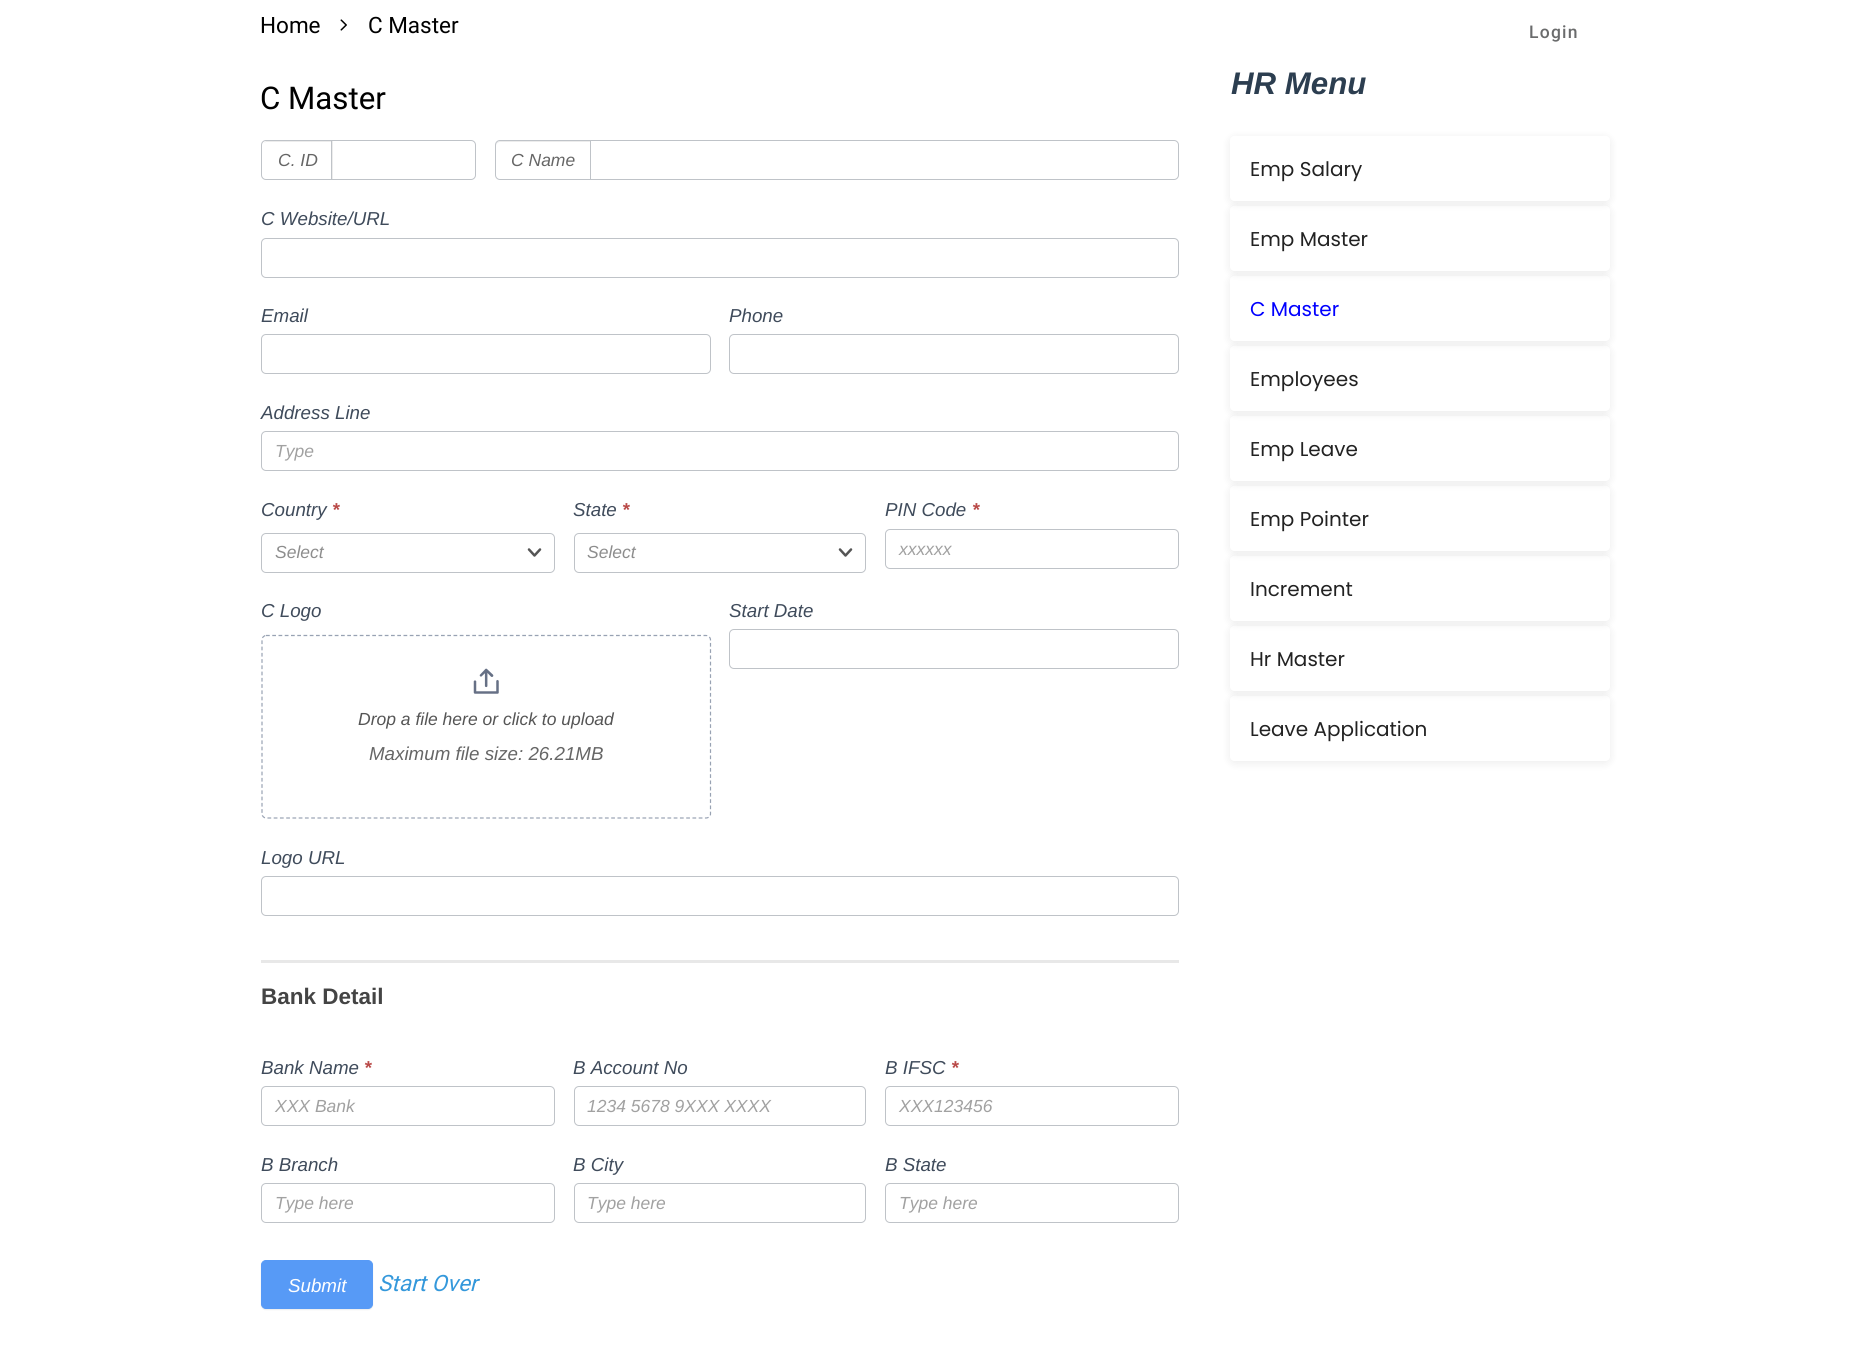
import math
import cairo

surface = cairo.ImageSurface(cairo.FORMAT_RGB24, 1870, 1350)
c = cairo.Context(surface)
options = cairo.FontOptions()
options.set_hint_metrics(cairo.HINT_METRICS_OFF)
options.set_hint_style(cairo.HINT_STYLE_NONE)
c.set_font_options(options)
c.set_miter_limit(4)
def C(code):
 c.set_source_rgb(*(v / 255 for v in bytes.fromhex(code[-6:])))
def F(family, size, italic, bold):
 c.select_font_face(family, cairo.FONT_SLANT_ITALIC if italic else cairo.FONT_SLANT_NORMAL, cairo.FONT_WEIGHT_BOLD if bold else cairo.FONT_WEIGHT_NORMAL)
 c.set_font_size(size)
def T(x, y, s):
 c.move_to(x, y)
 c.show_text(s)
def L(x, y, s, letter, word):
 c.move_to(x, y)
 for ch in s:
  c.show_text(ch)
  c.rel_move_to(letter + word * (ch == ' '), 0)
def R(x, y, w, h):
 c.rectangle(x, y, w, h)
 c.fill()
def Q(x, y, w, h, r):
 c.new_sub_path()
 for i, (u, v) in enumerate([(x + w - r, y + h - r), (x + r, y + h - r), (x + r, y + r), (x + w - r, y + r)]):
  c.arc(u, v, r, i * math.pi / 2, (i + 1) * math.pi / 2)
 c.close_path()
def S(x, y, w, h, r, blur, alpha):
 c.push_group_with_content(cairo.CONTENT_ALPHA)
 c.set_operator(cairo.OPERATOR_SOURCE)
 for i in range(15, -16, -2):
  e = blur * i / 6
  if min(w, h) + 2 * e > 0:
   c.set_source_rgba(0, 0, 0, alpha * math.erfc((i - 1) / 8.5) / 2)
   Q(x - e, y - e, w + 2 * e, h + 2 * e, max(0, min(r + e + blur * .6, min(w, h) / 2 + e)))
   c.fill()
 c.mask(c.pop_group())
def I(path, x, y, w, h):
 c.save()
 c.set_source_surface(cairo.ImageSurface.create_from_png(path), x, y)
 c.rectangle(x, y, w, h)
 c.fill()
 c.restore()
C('ffffff')
c.paint()
F('Roboto',22.5,0,0)
C('000000')
T(260,33,'Home')
I('1.png',340,19,7,12)
T(368,33,'C Master')
F('Roboto Medium',17.5,0,0)
C('6a6b6c')
L(1529,38,'Login',1.25,0)
F('Roboto',31.25,0,0)
C('000000')
T(260,109,'C Master')
C('ececec')
c.new_path()
c.move_to(266,142)
c.line_to(332,142)
c.line_to(332,179)
c.line_to(333,179)
c.line_to(333,141)
c.line_to(266,141)
c.line_to(264,143)
c.close_path()
c.fill()
c.new_path()
c.move_to(266,140.5)
c.line_to(333.5,140.5)
c.line_to(333.5,179.5)
c.line_to(266,179.5)
c.curve_to(263.5,179.5,261.5,177.5,261.5,175)
c.line_to(261.5,145)
c.curve_to(261.5,142.5,263.5,140.5,266,140.5)
c.close_path()
C('bfc3c8')
c.set_line_width(1)
c.stroke()
F('Liberation Sans',17.5,1,0)
C('666666')
T(278,166,'C. ID')
C('ffffff')
c.new_path()
c.move_to(333,141)
c.line_to(471,141)
c.curve_to(473,141,475,143,475,145)
c.line_to(475,175)
c.curve_to(475,177,473,179,471,179)
c.line_to(333,179)
c.close_path()
c.fill()
c.new_path()
c.move_to(331.5,140.5)
c.line_to(471,140.5)
c.curve_to(473.5,140.5,475.5,142.5,475.5,145)
c.line_to(475.5,175)
c.curve_to(475.5,177.5,473.5,179.5,471,179.5)
c.line_to(331.5,179.5)
c.close_path()
C('bfc3c8')
c.stroke()
C('ececec')
c.new_path()
c.move_to(500,142)
c.line_to(591,142)
c.line_to(591,141)
c.line_to(500,141)
c.curve_to(498,141,496,143,496,145)
c.line_to(496,146)
c.curve_to(496,144,498,142,500,142)
c.close_path()
c.fill()
c.new_path()
c.move_to(500,140.5)
c.line_to(592.5,140.5)
c.line_to(592.5,179.5)
c.line_to(500,179.5)
c.curve_to(497.5,179.5,495.5,177.5,495.5,175)
c.line_to(495.5,145)
c.curve_to(495.5,142.5,497.5,140.5,500,140.5)
c.close_path()
C('bfc3c8')
c.stroke()
C('666666')
T(511,166,'C Name')
C('ffffff')
c.new_path()
c.move_to(590.5,140.5)
c.line_to(1174,140.5)
c.curve_to(1176.5,140.5,1178.5,142.5,1178.5,145)
c.line_to(1178.5,175)
c.curve_to(1178.5,177.5,1176.5,179.5,1174,179.5)
c.line_to(590.5,179.5)
c.close_path()
c.fill_preserve()
C('bfc3c8')
c.stroke()
F('Liberation Sans',18.75,1,0)
C('3f4b5b')
T(261,225,'C Website/URL')
Q(261.5,238.5,917,39,4.5)
C('bfc3c8')
c.stroke()
C('3f4b5b')
T(261,322,'Email')
Q(261.5,334.5,449,39,4.5)
C('bfc3c8')
c.stroke()
C('3f4b5b')
T(729,322,'Phone')
Q(729.5,334.5,449,39,4.5)
C('bfc3c8')
c.stroke()
C('3f4b5b')
T(261,419,'Address Line')
Q(261.5,431.5,917,39,4.5)
C('bfc3c8')
c.stroke()
F('Liberation Sans',17.5,1,0)
C('a1a1a1')
T(275,457,'Type')
F('Liberation Sans',18.75,1,0)
C('3f4b5b')
T(261,516,'Country')
F('Liberation Sans',18.75,1,1)
C('b94a48')
T(332,516,'*')
Q(261.5,533.5,293,39,4.5)
C('bfc3c8')
c.stroke()
F('Liberation Sans',17.5,1,0)
C('8d8d8d')
T(275,558,'Select')
c.new_path()
c.move_to(529,549.5)
c.line_to(534.5,555.5)
c.line_to(540,549.5)
C('555555')
c.set_line_width(2.5)
c.set_line_cap(cairo.LINE_CAP_ROUND)
c.set_line_join(cairo.LINE_JOIN_ROUND)
c.stroke()
F('Liberation Sans',18.75,1,0)
C('3f4b5b')
T(573,516,'State')
F('Liberation Sans',18.75,1,1)
C('b94a48')
T(622,516,'*')
Q(574.5,533.5,291,39,4.5)
C('bfc3c8')
c.set_line_width(1)
c.set_line_cap(cairo.LINE_CAP_BUTT)
c.set_line_join(cairo.LINE_JOIN_MITER)
c.stroke()
F('Liberation Sans',17.5,1,0)
C('8d8d8d')
T(587,558,'Select')
c.new_path()
c.move_to(840,549.5)
c.line_to(845.5,555.5)
c.line_to(851,549.5)
C('555555')
c.set_line_width(2.5)
c.set_line_cap(cairo.LINE_CAP_ROUND)
c.set_line_join(cairo.LINE_JOIN_ROUND)
c.stroke()
F('Liberation Sans',18.75,1,0)
C('3f4b5b')
T(885,516,'PIN Code')
F('Liberation Sans',18.75,1,1)
C('b94a48')
T(972,516,'*')
Q(885.5,529.5,293,39,4.5)
C('bfc3c8')
c.set_line_width(1)
c.set_line_cap(cairo.LINE_CAP_BUTT)
c.set_line_join(cairo.LINE_JOIN_MITER)
c.stroke()
F('Liberation Sans',17.5,1,0)
C('a1a1a1')
T(899,555,'xxxxxx')
F('Liberation Sans',18.75,1,0)
C('3f4b5b')
T(261,617,'C Logo')
c.new_path()
c.move_to(266,635.5)
c.line_to(706,635.5)
c.curve_to(708.5,635.5,710.5,637.5,710.5,640)
c.line_to(710.5,814)
c.curve_to(710.5,816,708.5,818,706,818)
c.line_to(266,818)
c.curve_to(264,818,262,816,262,814)
c.line_to(262,640)
c.curve_to(262,637.5,264,635.5,266,635.5)
c.close_path()
C('98a2b3')
c.set_line_width(1.2)
c.set_dash([3.75,2.5])
c.stroke()
I('2.png',473,668,26,26)
F('Liberation Sans',17.5,1,0)
C('555555')
T(358,725,'Drop a file here or click to upload')
F('Liberation Sans',18.75,1,0)
C('666666')
T(369,760,'Maximum file size: 26.21MB')
C('3f4b5b')
T(729,617,'Start Date')
Q(729.5,629.5,449,39,4.5)
C('bfc3c8')
c.set_line_width(1)
c.set_dash([])
c.stroke()
C('3f4b5b')
T(261,864,'Logo URL')
Q(261.5,876.5,917,39,4.5)
C('bfc3c8')
c.stroke()
C('e8e8e8')
R(261,960,918,3)
F('Liberation Sans',22.5,0,1)
C('444444')
T(261,1004,'Bank Detail')
F('Liberation Sans',18.75,1,0)
C('3f4b5b')
T(261,1074,'Bank Name')
F('Liberation Sans',18.75,1,1)
C('b94a48')
T(364,1074,'*')
Q(261.5,1086.5,293,39,4.5)
C('bfc3c8')
c.stroke()
F('Liberation Sans',17.5,1,0)
C('a1a1a1')
T(275,1112,'XXX Bank')
F('Liberation Sans',18.75,1,0)
C('3f4b5b')
T(573,1074,'B Account No')
Q(574.5,1086.5,291,39,4.5)
C('bfc3c8')
c.stroke()
F('Liberation Sans',17.5,1,0)
C('a1a1a1')
T(587,1112,'1234 5678 9XXX XXXX')
F('Liberation Sans',18.75,1,0)
C('3f4b5b')
T(885,1074,'B IFSC')
F('Liberation Sans',18.75,1,1)
C('b94a48')
T(951,1074,'*')
Q(885.5,1086.5,293,39,4.5)
C('bfc3c8')
c.stroke()
F('Liberation Sans',17.5,1,0)
C('a1a1a1')
T(899,1112,'XXX123456')
F('Liberation Sans',18.75,1,0)
C('3f4b5b')
T(261,1171,'B Branch')
Q(261.5,1183.5,293,39,4.5)
C('bfc3c8')
c.stroke()
F('Liberation Sans',17.5,1,0)
C('a1a1a1')
T(275,1209,'Type here')
F('Liberation Sans',18.75,1,0)
C('3f4b5b')
T(573,1171,'B City')
Q(574.5,1183.5,291,39,4.5)
C('bfc3c8')
c.stroke()
F('Liberation Sans',17.5,1,0)
C('a1a1a1')
T(587,1209,'Type here')
F('Liberation Sans',18.75,1,0)
C('3f4b5b')
T(885,1171,'B State')
Q(885.5,1183.5,293,39,4.5)
C('bfc3c8')
c.stroke()
F('Liberation Sans',17.5,1,0)
C('a1a1a1')
T(899,1209,'Type here')
C('eeeeee')
S(261,1261,112,49,5,.5,1)
C('579af6')
Q(261.5,1260.5,111,48,4.5)
c.fill_preserve()
c.stroke()
F('Liberation Sans',18.75,1,0)
C('ffffff')
T(288,1292,'Submit')
F('Roboto',22.5,1,0)
C('3498db')
T(378,1291,'Start Over')
F('Liberation Sans',31.25,1,1)
C('2c3e50')
T(1231,94,'HR Menu')
c.save()
c.set_fill_rule(cairo.FILL_RULE_EVEN_ODD)
c.new_path()
c.move_to(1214,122)
c.line_to(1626,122)
c.line_to(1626,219)
c.line_to(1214,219)
c.close_path()
c.move_to(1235,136)
c.line_to(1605,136)
c.curve_to(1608,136,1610,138,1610,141)
c.line_to(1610,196)
c.curve_to(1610,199,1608,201,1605,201)
c.line_to(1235,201)
c.curve_to(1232,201,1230,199,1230,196)
c.line_to(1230,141)
c.curve_to(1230,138,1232,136,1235,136)
c.close_path()
c.clip()
C('000000')
S(1230,138,380,65,5,5,.08)
c.restore()
F('Poppins',20,0,0)
C('222222')
T(1250,176,'Emp Salary')
c.save()
c.set_fill_rule(cairo.FILL_RULE_EVEN_ODD)
c.new_path()
c.move_to(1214,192)
c.line_to(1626,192)
c.line_to(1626,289)
c.line_to(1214,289)
c.close_path()
c.move_to(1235,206)
c.line_to(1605,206)
c.curve_to(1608,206,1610,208,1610,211)
c.line_to(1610,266)
c.curve_to(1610,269,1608,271,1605,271)
c.line_to(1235,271)
c.curve_to(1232,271,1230,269,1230,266)
c.line_to(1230,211)
c.curve_to(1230,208,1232,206,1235,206)
c.close_path()
c.clip()
C('000000')
S(1230,208,380,65,5,5,.08)
c.restore()
T(1250,246,'Emp Master')
c.save()
c.set_fill_rule(cairo.FILL_RULE_EVEN_ODD)
c.new_path()
c.move_to(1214,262)
c.line_to(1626,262)
c.line_to(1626,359)
c.line_to(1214,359)
c.close_path()
c.move_to(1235,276)
c.line_to(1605,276)
c.curve_to(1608,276,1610,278,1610,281)
c.line_to(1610,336)
c.curve_to(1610,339,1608,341,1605,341)
c.line_to(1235,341)
c.curve_to(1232,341,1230,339,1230,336)
c.line_to(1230,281)
c.curve_to(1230,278,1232,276,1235,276)
c.close_path()
c.clip()
C('000000')
S(1230,278,380,65,5,5,.08)
c.restore()
C('0100ff')
T(1250,316,'C Master')
c.save()
c.set_fill_rule(cairo.FILL_RULE_EVEN_ODD)
c.new_path()
c.move_to(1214,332)
c.line_to(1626,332)
c.line_to(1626,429)
c.line_to(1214,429)
c.close_path()
c.move_to(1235,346)
c.line_to(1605,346)
c.curve_to(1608,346,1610,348,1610,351)
c.line_to(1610,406)
c.curve_to(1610,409,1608,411,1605,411)
c.line_to(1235,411)
c.curve_to(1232,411,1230,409,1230,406)
c.line_to(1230,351)
c.curve_to(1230,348,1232,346,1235,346)
c.close_path()
c.clip()
C('000000')
S(1230,348,380,65,5,5,.08)
c.restore()
C('222222')
T(1250,386,'Employees')
c.save()
c.set_fill_rule(cairo.FILL_RULE_EVEN_ODD)
c.new_path()
c.move_to(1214,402)
c.line_to(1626,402)
c.line_to(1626,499)
c.line_to(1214,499)
c.close_path()
c.move_to(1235,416)
c.line_to(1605,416)
c.curve_to(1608,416,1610,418,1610,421)
c.line_to(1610,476)
c.curve_to(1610,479,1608,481,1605,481)
c.line_to(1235,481)
c.curve_to(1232,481,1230,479,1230,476)
c.line_to(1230,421)
c.curve_to(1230,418,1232,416,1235,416)
c.close_path()
c.clip()
C('000000')
S(1230,418,380,65,5,5,.08)
c.restore()
T(1250,456,'Emp Leave')
c.save()
c.set_fill_rule(cairo.FILL_RULE_EVEN_ODD)
c.new_path()
c.move_to(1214,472)
c.line_to(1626,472)
c.line_to(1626,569)
c.line_to(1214,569)
c.close_path()
c.move_to(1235,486)
c.line_to(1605,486)
c.curve_to(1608,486,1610,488,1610,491)
c.line_to(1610,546)
c.curve_to(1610,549,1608,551,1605,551)
c.line_to(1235,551)
c.curve_to(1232,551,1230,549,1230,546)
c.line_to(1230,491)
c.curve_to(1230,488,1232,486,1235,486)
c.close_path()
c.clip()
C('000000')
S(1230,488,380,65,5,5,.08)
c.restore()
T(1250,526,'Emp Pointer')
c.save()
c.set_fill_rule(cairo.FILL_RULE_EVEN_ODD)
c.new_path()
c.move_to(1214,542)
c.line_to(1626,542)
c.line_to(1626,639)
c.line_to(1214,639)
c.close_path()
c.move_to(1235,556)
c.line_to(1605,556)
c.curve_to(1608,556,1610,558,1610,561)
c.line_to(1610,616)
c.curve_to(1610,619,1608,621,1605,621)
c.line_to(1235,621)
c.curve_to(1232,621,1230,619,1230,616)
c.line_to(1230,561)
c.curve_to(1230,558,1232,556,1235,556)
c.close_path()
c.clip()
C('000000')
S(1230,558,380,65,5,5,.08)
c.restore()
T(1250,596,'Increment')
c.save()
c.set_fill_rule(cairo.FILL_RULE_EVEN_ODD)
c.new_path()
c.move_to(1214,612)
c.line_to(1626,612)
c.line_to(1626,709)
c.line_to(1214,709)
c.close_path()
c.move_to(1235,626)
c.line_to(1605,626)
c.curve_to(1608,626,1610,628,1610,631)
c.line_to(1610,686)
c.curve_to(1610,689,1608,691,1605,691)
c.line_to(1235,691)
c.curve_to(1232,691,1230,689,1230,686)
c.line_to(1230,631)
c.curve_to(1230,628,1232,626,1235,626)
c.close_path()
c.clip()
C('000000')
S(1230,628,380,65,5,5,.08)
c.restore()
T(1250,666,'Hr Master')
c.save()
c.set_fill_rule(cairo.FILL_RULE_EVEN_ODD)
c.new_path()
c.move_to(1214,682)
c.line_to(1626,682)
c.line_to(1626,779)
c.line_to(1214,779)
c.close_path()
c.move_to(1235,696)
c.line_to(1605,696)
c.curve_to(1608,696,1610,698,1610,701)
c.line_to(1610,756)
c.curve_to(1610,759,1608,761,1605,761)
c.line_to(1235,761)
c.curve_to(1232,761,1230,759,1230,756)
c.line_to(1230,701)
c.curve_to(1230,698,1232,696,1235,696)
c.close_path()
c.clip()
C('000000')
S(1230,698,380,65,5,5,.08)
c.restore()
T(1250,736,'Leave Application')
surface.write_to_png('o.png')
